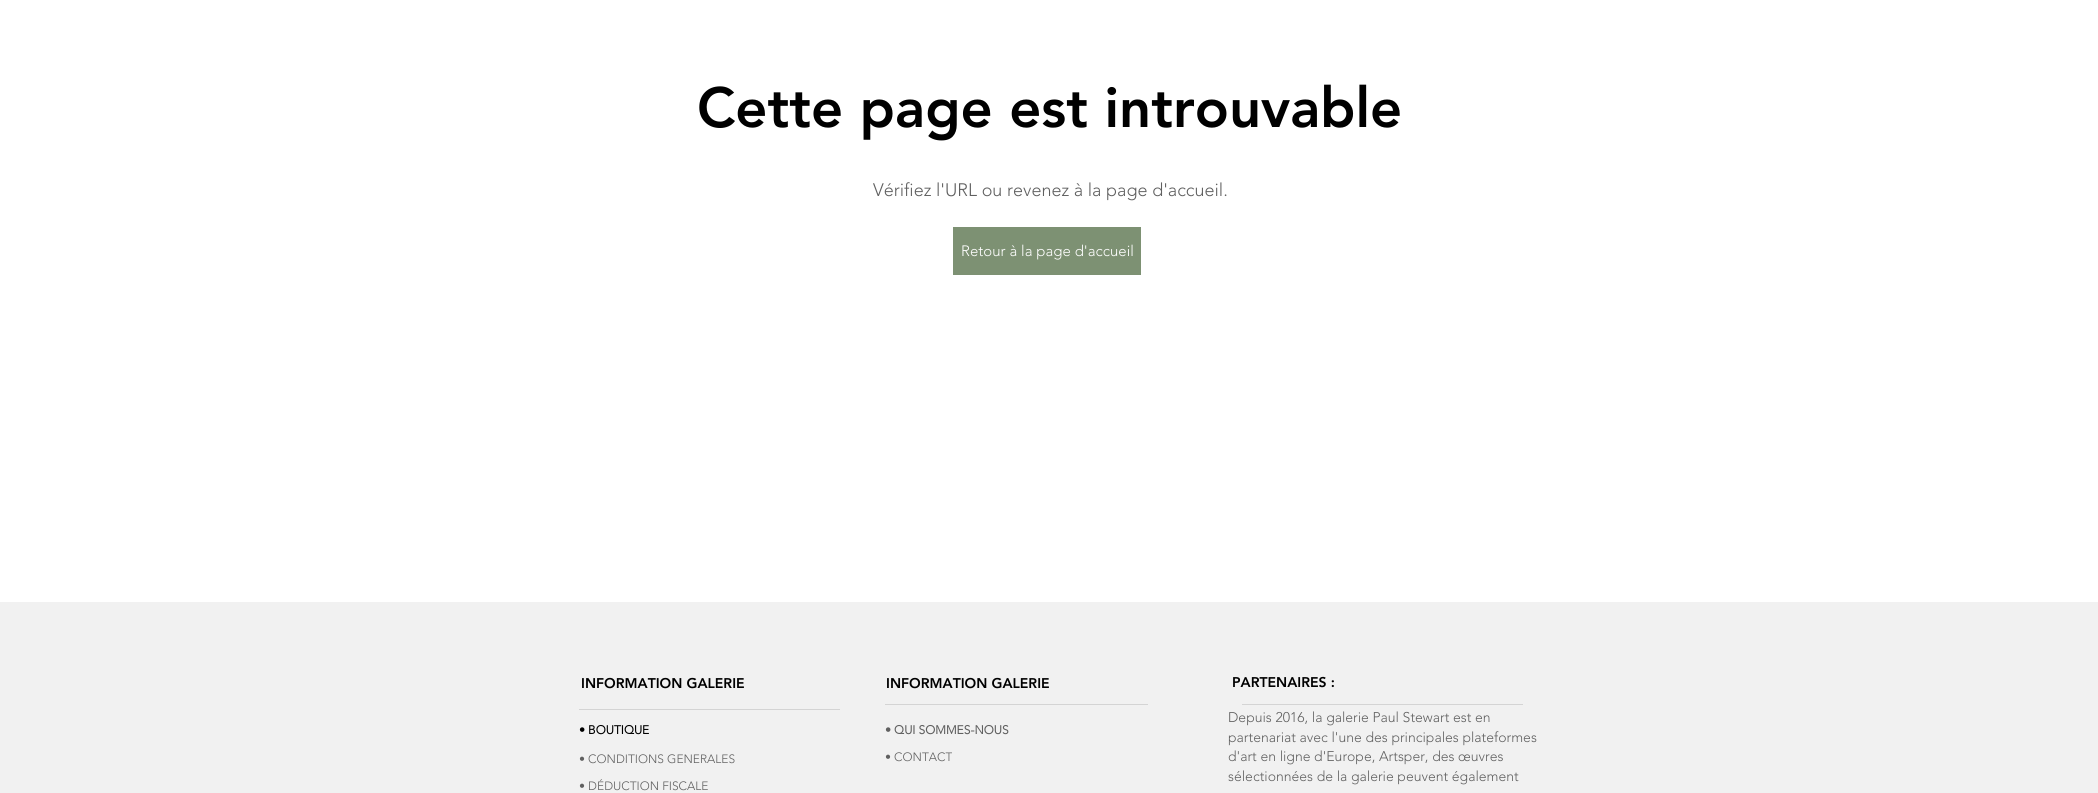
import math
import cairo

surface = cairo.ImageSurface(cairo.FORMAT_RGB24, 2098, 793)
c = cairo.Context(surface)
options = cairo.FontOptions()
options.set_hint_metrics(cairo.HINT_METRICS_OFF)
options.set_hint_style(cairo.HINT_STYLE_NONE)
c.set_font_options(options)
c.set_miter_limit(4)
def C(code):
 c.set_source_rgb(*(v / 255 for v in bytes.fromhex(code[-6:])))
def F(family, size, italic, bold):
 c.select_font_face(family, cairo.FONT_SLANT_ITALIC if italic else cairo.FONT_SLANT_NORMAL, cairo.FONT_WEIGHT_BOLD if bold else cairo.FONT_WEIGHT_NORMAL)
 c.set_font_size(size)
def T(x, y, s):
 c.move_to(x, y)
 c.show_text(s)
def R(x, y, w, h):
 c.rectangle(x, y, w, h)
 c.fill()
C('ffffff')
c.paint()
F('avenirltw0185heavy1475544 Black',56,0,0)
C('000000')
T(697,127,'Cette page est introuvable')
F('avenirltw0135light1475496 Light',18,0,0)
C('606060')
T(873,196,'Vérifiez l\'URL ou revenez à la page d\'accueil.')
C('7d9173')
R(953,227,188,48)
F('avenirltw0135light1475496 Light',15,0,0)
C('ffffff')
T(961,256,'Retour à la page d\'accueil')
C('f1f1f1')
R(0,602,2098,191)
F('avenirltw0185heavy1475544 Black',14,0,0)
C('000000')
T(581,688,'INFORMATION GALERIE')
C('d4d4d4')
R(579,709,261,1)
F('avenirltw0135light1475496',12,0,1)
C('000000')
T(579,734,'• BOUTIQUE')
F('avenirltw0135light1475496 Light',12,0,0)
C('606060')
T(579,763,'• CONDITIONS GENERALES')
T(579,790,'• DÉDUCTION FISCALE')
F('avenirltw0185heavy1475544 Black',14,0,0)
C('000000')
T(886,688,'INFORMATION GALERIE')
C('d4d4d4')
R(885,704,263,1)
F('avenirltw0135light1475496',12,0,1)
C('606060')
T(885,734,'• QUI SOMMES-NOUS')
F('avenirltw0135light1475496 Light',12,0,0)
T(885,761,'• CONTACT')
F('avenirltw0185heavy1475544 Black',14,0,0)
C('000000')
T(1232,687,'PARTENAIRES :')
C('d4d4d4')
R(1242,704,281,1)
F('avenirltw0135light1475496 Light',14,0,0)
C('606060')
T(1228,722,'Depuis 2016, la galerie Paul Stewart est en')
T(1228,742,'partenariat avec l\'une des principales plateformes')
T(1228,761,'d\'art en ligne d\'Europe, Artsper, des œuvres')
T(1228,781,'sélectionnées de la galerie peuvent également')
surface.write_to_png('o.png')
